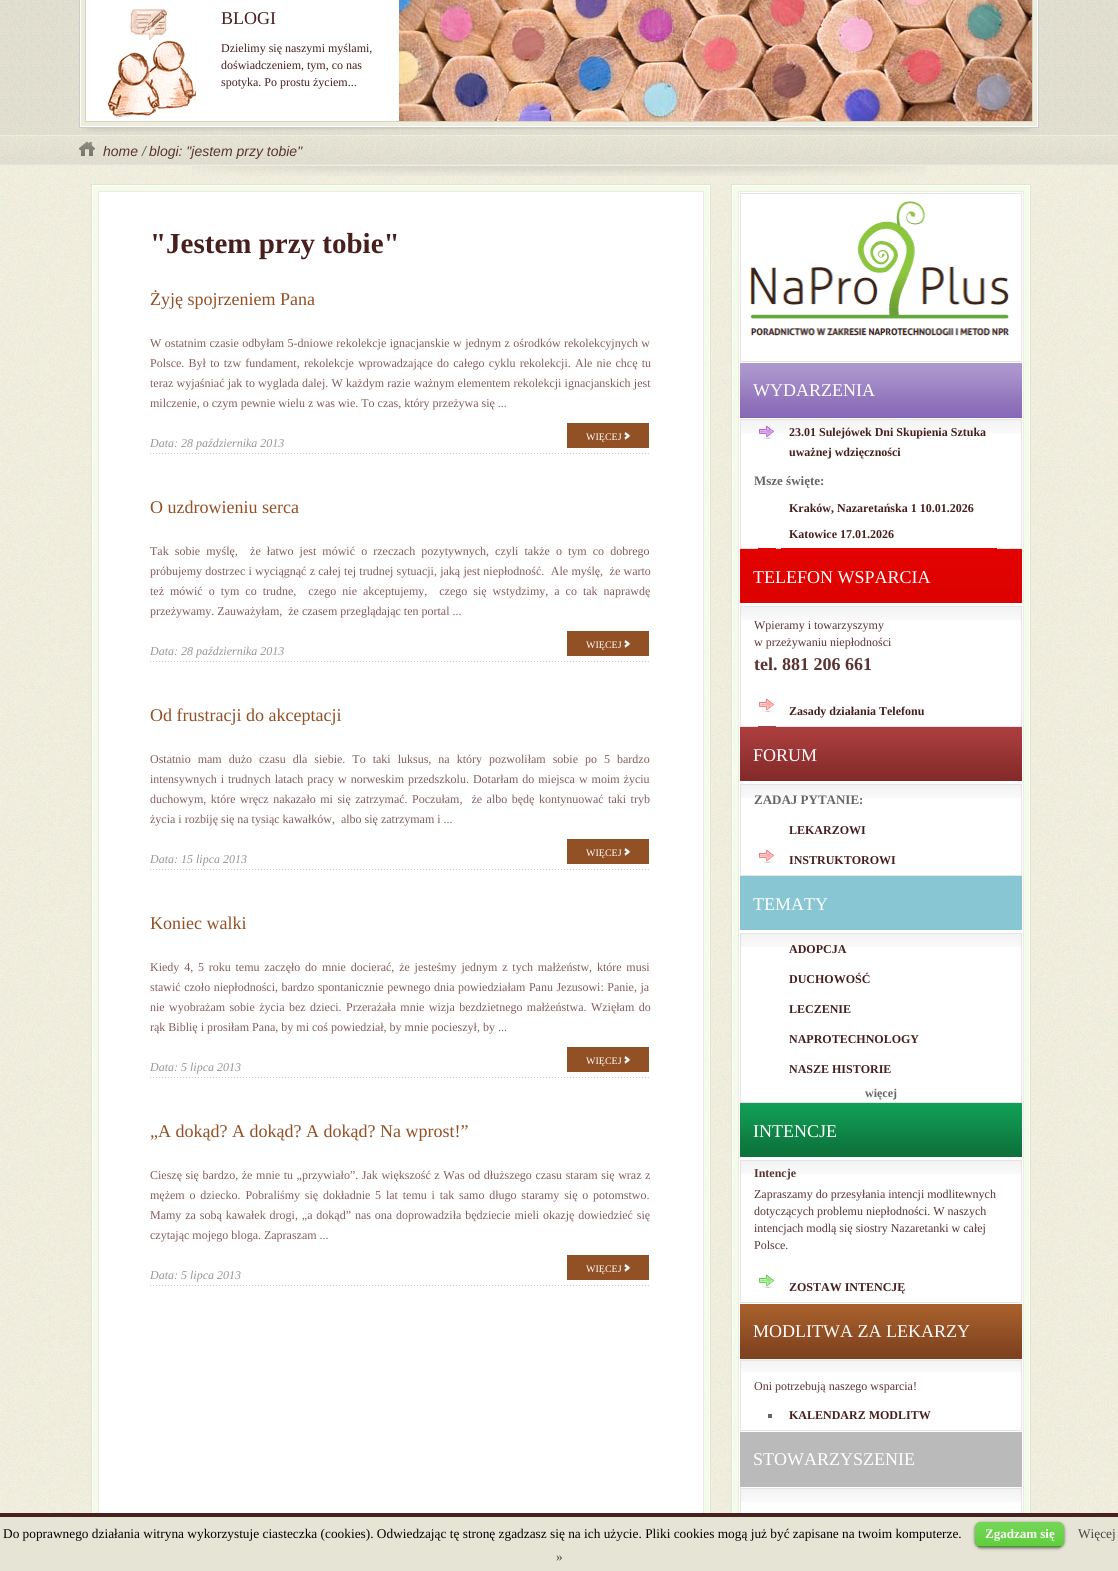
import math
import cairo

surface = cairo.ImageSurface(cairo.FORMAT_RGB24, 1118, 1571)
c = cairo.Context(surface)
options = cairo.FontOptions()
options.set_hint_metrics(cairo.HINT_METRICS_OFF)
options.set_hint_style(cairo.HINT_STYLE_NONE)
c.set_font_options(options)
c.set_miter_limit(4)
def C(code):
 c.set_source_rgb(*(v / 255 for v in bytes.fromhex(code[-6:])))
def F(family, size, italic, bold):
 c.select_font_face(family, cairo.FONT_SLANT_ITALIC if italic else cairo.FONT_SLANT_NORMAL, cairo.FONT_WEIGHT_BOLD if bold else cairo.FONT_WEIGHT_NORMAL)
 c.set_font_size(size)
def T(x, y, s):
 c.move_to(x, y)
 c.show_text(s)
def L(x, y, s, letter, word):
 c.move_to(x, y)
 for ch in s:
  c.show_text(ch)
  c.rel_move_to(letter + word * (ch == ' '), 0)
def R(x, y, w, h):
 c.rectangle(x, y, w, h)
 c.fill()
def Q(x, y, w, h, r):
 c.new_sub_path()
 for i, (u, v) in enumerate([(x + w - r, y + h - r), (x + r, y + h - r), (x + r, y + r), (x + w - r, y + r)]):
  c.arc(u, v, r, i * math.pi / 2, (i + 1) * math.pi / 2)
 c.close_path()
def S(x, y, w, h, r, blur, alpha):
 c.push_group_with_content(cairo.CONTENT_ALPHA)
 c.set_operator(cairo.OPERATOR_SOURCE)
 for i in range(15, -16, -2):
  e = blur * i / 6
  if min(w, h) + 2 * e > 0:
   c.set_source_rgba(0, 0, 0, alpha * math.erfc((i - 1) / 8.5) / 2)
   Q(x - e, y - e, w + 2 * e, h + 2 * e, max(0, min(r + e + blur * .6, min(w, h) / 2 + e)))
   c.fill()
 c.mask(c.pop_group())
def I(path, x, y, w, h):
 c.save()
 c.set_source_surface(cairo.ImageSurface.create_from_png(path), x, y)
 c.rectangle(x, y, w, h)
 c.fill()
 c.restore()
C('ffffff')
c.paint()
I('1.png',0,135,1118,1378)
I('2.png',0,0,1118,135)
I('3.png',79,0,960,133)
C('ffffff')
R(86,0,313,121)
I('4.png',108,8,88,109)
F('Liberation Serif',18,0,0)
C('471f1d')
T(221,24,'BLOGI')
I('5.png',399,0,633,121)
F('Liberation Serif',12,0,0)
T(221,52,'Dzielimy się naszymi myślami,')
T(221,69,'doświadczeniem, tym, co nas')
T(221,86,'spotyka. Po prostu życiem...')
I('6.png',0,136,1118,28)
I('7.png',79,141,16,15)
F('Liberation Sans',14,1,0)
C('5b3432')
T(103,156,'home')
C('666666')
T(142,156,'/')
C('5b3432')
T(149,156,'blogi: "jestem przy tobie"')
I('8.png',192,166,734,10)
C('e2e2e2')
R(0,164,1118,1)
I('9.png',91,184,620,8)
I('10.png',91,192,620,1321)
F('Liberation Serif',29,0,1)
C('471f1d')
T(150,253,'"Jestem przy tobie"')
F('Liberation Serif',18,0,0)
C('925025')
T(150,305,'Żyję spojrzeniem Pana')
F('Liberation Serif',12,0,0)
C('845d5b')
L(150,347,'W ostatnim czasie odbyłam 5-dniowe rekolekcje ignacjanskie w jednym z ośrodków rekolekcyjnych w',0,.4)
L(150,367,'Polsce. Był to tzw fundament, rekolekcje wprowadzające do całego cyklu rekolekcji. Ale nie chcę tu',0,1.25)
L(150,387,'teraz wyjaśniać jak to wyglada dalej. W każdym razie ważnym elementem rekolekcji ignacjanskich jest',0,.2)
T(150,407,'milczenie, o czym pewnie wielu z was wie. To czas, który przeżywa się ...')
F('Liberation Serif',12,1,0)
C('969696')
T(150,447,'Data: 28 października 2013')
C('925025')
R(567,423,82,25)
F('Liberation Serif',10,0,0)
C('ffffff')
T(586,440,'WIĘCEJ')
I('11.png',624,432,6,8)
I('12.png',150,453,499,1)
F('Liberation Serif',18,0,0)
C('925025')
T(150,513,'O uzdrowieniu serca')
F('Liberation Serif',12,0,0)
C('845d5b')
L(150,555,'Tak sobie myślę,  że łatwo jest mówić o rzeczach pozytywnych, czyli także o tym co dobrego',0,3.1)
L(150,575,'próbujemy dostrzec i wyciągnąć z całej tej trudnej sytuacji, jaką jest niepłodność.  Ale myślę,  że warto',0,.25)
L(150,595,'też mówić o tym co trudne,  czego nie akceptujemy,  czego się wstydzimy, a co tak naprawdę',0,3)
T(150,615,'przeżywamy. Zauważyłam,  że czasem przeglądając ten portal ...')
F('Liberation Serif',12,1,0)
C('969696')
T(150,655,'Data: 28 października 2013')
C('925025')
R(567,631,82,25)
F('Liberation Serif',10,0,0)
C('ffffff')
T(586,648,'WIĘCEJ')
I('11.png',624,640,6,8)
I('12.png',150,661,499,1)
F('Liberation Serif',18,0,0)
C('925025')
T(150,721,'Od frustracji do akceptacji')
F('Liberation Serif',12,0,0)
C('845d5b')
L(150,763,'Ostatnio mam dużo czasu dla siebie. To taki luksus, na który pozwoliłam sobie po 5 bardzo',0,4)
L(150,783,'intensywnych i trudnych latach pracy w norweskim przedszkolu. Dotarłam do miejsca w moim życiu',0,1)
L(150,803,'duchowym, które wręcz nakazało mi się zatrzymać. Poczułam,  że albo będę kontynuować taki tryb',0,1.5)
T(150,823,'życia i rozbiję się na tysiąc kawałków,  albo się zatrzymam i ...')
F('Liberation Serif',12,1,0)
C('969696')
T(150,863,'Data: 15 lipca 2013')
C('925025')
R(567,839,82,25)
F('Liberation Serif',10,0,0)
C('ffffff')
T(586,856,'WIĘCEJ')
I('11.png',624,848,6,8)
I('12.png',150,869,499,1)
F('Liberation Serif',18,0,0)
C('925025')
T(150,929,'Koniec walki')
F('Liberation Serif',12,0,0)
C('845d5b')
L(150,971,'Kiedy 4, 5 roku temu zaczęło do mnie docierać, że jesteśmy jednym z tych małżeństw, które musi',0,1.8)
L(150,991,'stawić czoło niepłodności, bardzo spontanicznie pewnego dnia powiedziałam Panu Jezusowi: Panie, ja',0,.5)
L(150,1011,'nie wyobrażam sobie życia bez dzieci. Przerażała mnie wizja bezdzietnego małżeństwa. Wzięłam do',0,1.4)
T(150,1031,'rąk Biblię i prosiłam Pana, by mi coś powiedział, by mnie pocieszył, by ...')
F('Liberation Serif',12,1,0)
C('969696')
T(150,1071,'Data: 5 lipca 2013')
C('925025')
R(567,1047,82,25)
F('Liberation Serif',10,0,0)
C('ffffff')
T(586,1064,'WIĘCEJ')
I('11.png',624,1056,6,8)
I('12.png',150,1077,499,1)
F('Liberation Serif',18,0,0)
C('925025')
T(150,1137,'„A dokąd? A dokąd? A dokąd? Na wprost!”')
F('Liberation Serif',12,0,0)
C('845d5b')
L(150,1179,'Cieszę się bardzo, że mnie tu „przywiało”. Jak większość z Was od dłuższego czasu staram się wraz z',0,.6)
L(150,1199,'mężem o dziecko. Pobraliśmy się dokładnie 5 lat temu i tak samo długo staramy się o potomstwo.',0,1.8)
L(150,1219,'Mamy za sobą kawałek drogi, „a dokąd” nas ona doprowadziła będziecie mieli okazję dowiedzieć się',0,.9)
T(150,1239,'czytając mojego bloga. Zapraszam ...')
F('Liberation Serif',12,1,0)
C('969696')
T(150,1279,'Data: 5 lipca 2013')
C('925025')
R(567,1255,82,25)
F('Liberation Serif',10,0,0)
C('ffffff')
T(586,1272,'WIĘCEJ')
I('11.png',624,1264,6,8)
I('12.png',150,1285,499,1)
I('13.png',731,184,300,8)
I('14.png',731,192,300,1321)
c.rectangle(740.5,193.5,281,168)
C('e5e5e5')
c.set_line_width(1)
c.stroke()
I('15.png',741,194,280,142)
I('16.png',740,363,282,55)
F('Liberation Serif',18,0,0)
C('ffffff')
T(753,396,'WYDARZENIA')
I('17.png',741,420,280,13)
c.rectangle(740.5,419.5,281,129)
C('e5e5e5')
c.stroke()
I('18.png',759,425,15,14)
F('Liberation Serif',12,0,1)
C('471f1d')
T(789,436,'23.01 Sulejówek Dni Skupienia Sztuka')
T(789,456,'uważnej wdzięczności')
F('Liberation Serif',13,0,1)
C('666666')
T(754,485,'Msze święte:')
F('Liberation Serif',12,0,1)
C('471f1d')
T(789,512,'Kraków, Nazaretańska 1 10.01.2026')
C('e30200')
R(781,548,216,1)
R(758,548,18,1)
C('471f1d')
T(789,538,'Katowice 17.01.2026')
I('19.png',740,549,282,54)
F('Liberation Serif',18,0,0)
C('ffffff')
T(753,583,'TELEFON WSPARCIA')
I('17.png',741,607,280,13)
c.rectangle(740.5,606.5,281,120)
C('e5e5e5')
c.stroke()
F('Liberation Serif',12,0,0)
C('5b3432')
T(754,629,'Wpieramy i towarzyszymy')
T(754,646,'w przeżywaniu niepłodności')
F('Liberation Serif',18,0,1)
T(754,670,'tel. 881 206 661')
I('20.png',758,698,18,29)
F('Liberation Serif',12,0,1)
C('471f1d')
T(789,715,'Zasady działania Telefonu')
I('21.png',740,727,282,54)
F('Liberation Serif',18,0,0)
C('ffffff')
T(753,761,'FORUM')
I('17.png',741,785,280,13)
c.rectangle(740.5,784.5,281,91)
C('e5e5e5')
c.stroke()
F('Liberation Serif',13,0,1)
C('666666')
T(754,804,'ZADAJ PYTANIE:')
F('Liberation Serif',12,0,1)
C('471f1d')
T(789,834,'LEKARZOWI')
I('22.png',759,849,15,14)
T(789,864,'INSTRUKTOROWI')
C('89c6d4')
R(740,876,282,54)
F('Liberation Serif',18,0,0)
C('ffffff')
T(753,910,'TEMATY')
I('17.png',741,934,280,13)
c.rectangle(740.5,933.5,281,169)
C('e5e5e5')
c.stroke()
F('Liberation Serif',12,0,1)
C('471f1d')
T(789,953,'ADOPCJA')
T(789,983,'DUCHOWOŚĆ')
T(789,1013,'LECZENIE')
T(789,1043,'NAPROTECHNOLOGY')
T(789,1073,'NASZE HISTORIE')
C('666666')
T(865,1097,'więcej')
I('23.png',740,1103,282,54)
F('Liberation Serif',18,0,0)
C('ffffff')
T(753,1137,'INTENCJE')
I('17.png',741,1161,280,13)
c.rectangle(740.5,1160.5,281,142)
C('e5e5e5')
c.stroke()
F('Liberation Serif',12,0,1)
C('5b3432')
T(754,1177,'Intencje')
F('Liberation Serif',12,0,0)
T(754,1198,'Zapraszamy do przesyłania intencji modlitewnych')
T(754,1215,'dotyczących problemu niepłodności. W naszych')
T(754,1232,'intencjach modlą się siostry Nazaretanki w całej')
T(754,1249,'Polsce.')
I('24.png',759,1274,15,14)
F('Liberation Serif',12,0,1)
C('471f1d')
T(789,1291,'ZOSTAW INTENCJĘ')
I('25.png',740,1304,282,55)
F('Liberation Serif',18,0,0)
C('ffffff')
T(753,1337,'MODLITWA ZA LEKARZY')
I('26.png',741,1359,281,13)
c.rectangle(740.5,1360.5,281,70)
C('e5e5e5')
c.stroke()
F('Liberation Serif',12,0,0)
C('5b3432')
T(754,1390,'Oni potrzebują naszego wsparcia!')
C('666666')
R(768,1414,4,4)
F('Liberation Serif',12,0,1)
C('471f1d')
T(789,1419,'KALENDARZ MODLITW')
C('bababa')
R(740,1432,282,55)
F('Liberation Serif',18,0,0)
C('ffffff')
T(753,1465,'STOWARZYSZENIE')
I('17.png',741,1489,280,13)
c.rectangle(740.5,1488.5,281,53)
C('e5e5e5')
c.stroke()
C('e6e4d5')
R(0,1517,1118,54)
C('492020')
R(0,1513,1118,4)
F('Liberation Serif',13.33,0,0)
C('000000')
T(3,1538,'Do poprawnego działania witryna wykorzystuje ciasteczka (cookies). Odwiedzając tę stronę zgadzasz się na ich użycie. Pliki cookies mogą już być zapisane na twoim komputerze.')
C('000000')
S(975,1523,89,25,6,1.5,.6)
C('45c71d')
Q(975,1522,89,25,6)
c.fill()
I('27.png',975,1522,89,25)
c.set_source_rgba(0,0,0,0.25)
R(978,1546,83,1)
F('Liberation Serif',13,0,1)
C('ffffff')
T(985,1538,'Zgadzam się')
F('Liberation Serif',13.33,0,0)
C('444444')
T(1078,1538,'Więcej')
T(556,1561,'»')
surface.write_to_png('o.png')
